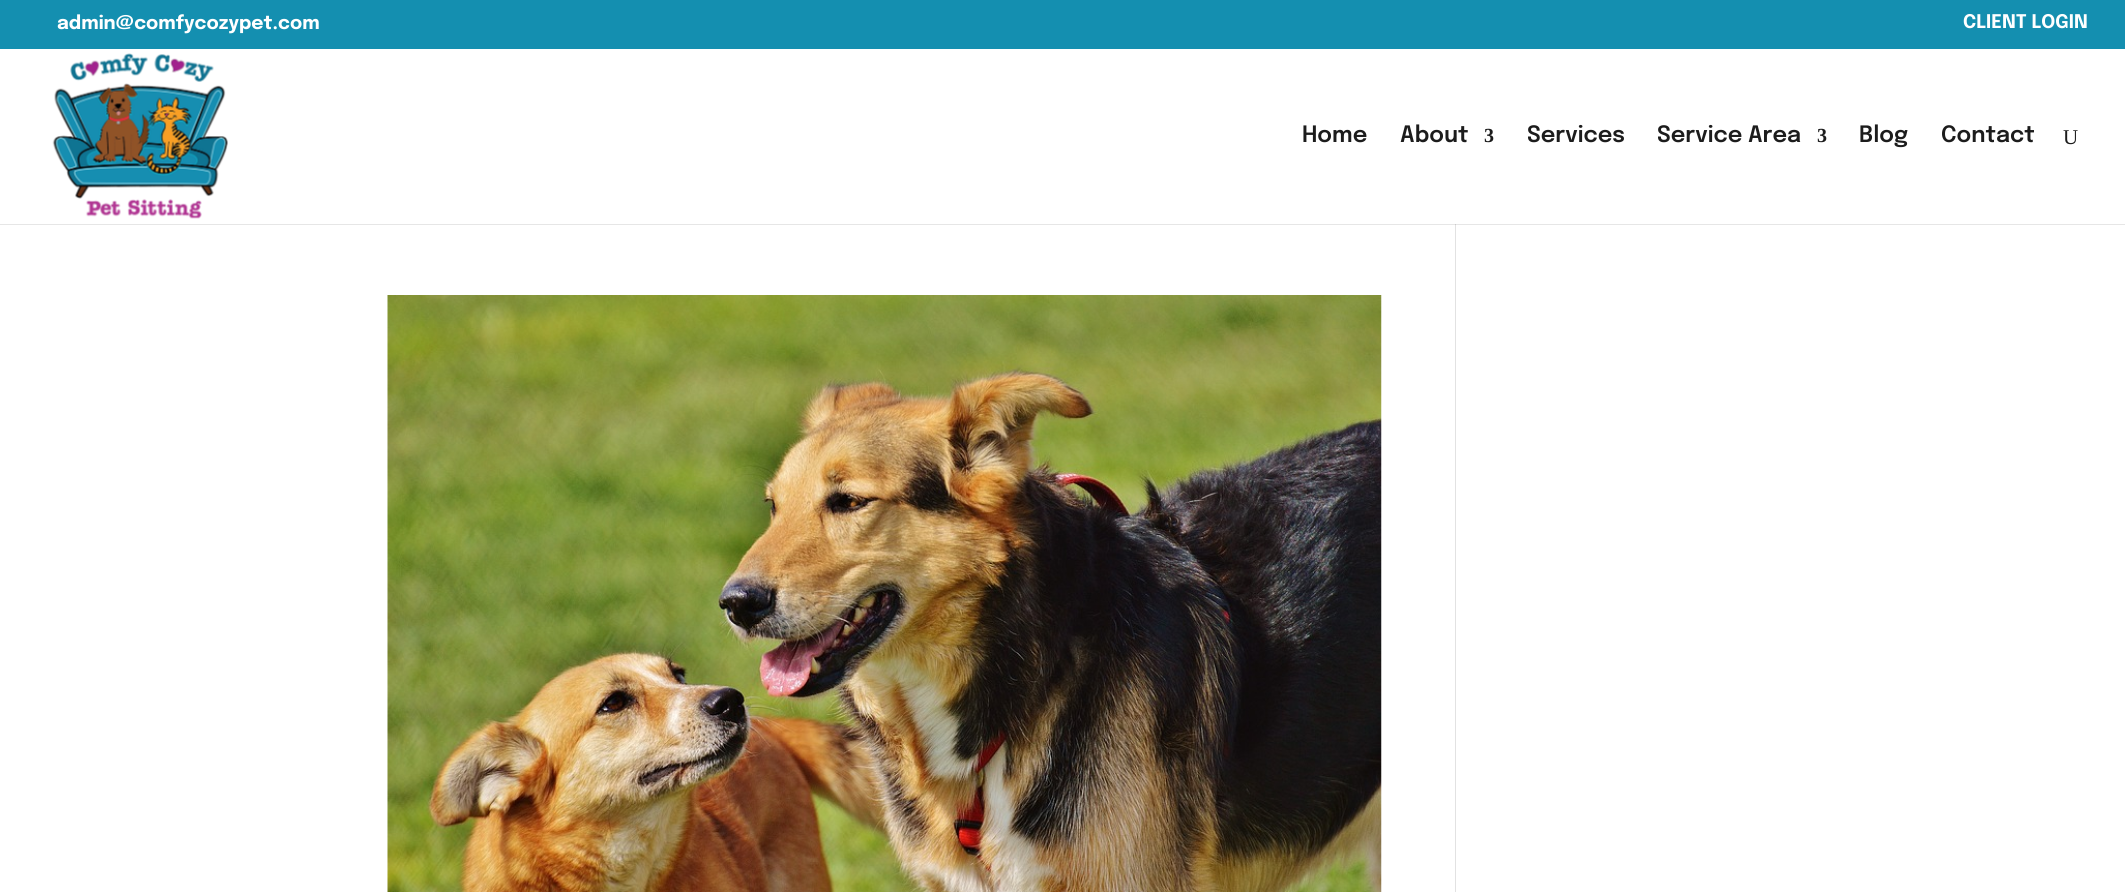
import math
import cairo

surface = cairo.ImageSurface(cairo.FORMAT_RGB24, 2125, 892)
c = cairo.Context(surface)
options = cairo.FontOptions()
options.set_hint_metrics(cairo.HINT_METRICS_OFF)
options.set_hint_style(cairo.HINT_STYLE_NONE)
c.set_font_options(options)
c.set_miter_limit(4)
def C(code):
 c.set_source_rgb(*(v / 255 for v in bytes.fromhex(code[-6:])))
def F(family, size, italic, bold):
 c.select_font_face(family, cairo.FONT_SLANT_ITALIC if italic else cairo.FONT_SLANT_NORMAL, cairo.FONT_WEIGHT_BOLD if bold else cairo.FONT_WEIGHT_NORMAL)
 c.set_font_size(size)
def T(x, y, s):
 c.move_to(x, y)
 c.show_text(s)
def R(x, y, w, h):
 c.rectangle(x, y, w, h)
 c.fill()
def I(path, x, y, w, h):
 c.save()
 c.set_source_surface(cairo.ImageSurface.create_from_png(path), x, y)
 c.rectangle(x, y, w, h)
 c.fill()
 c.restore()
C('ffffff')
c.paint()
C('e6e6e6')
R(0,224,2125,1)
C('148fb0')
R(0,0,2125,49)
F('Epilogue',18.75,0,1)
C('ffffff')
T(57,29,'admin@comfycozypet.com')
T(1963,28,'CLIENT LOGIN')
C('e2e2e2')
R(1455,223,1,669)
C('ffffff')
R(1455,223,1,1)
I('1.png',52,53,176,166)
F('Epilogue SemiBold',22.5,0,0)
C('1c1c1c')
T(1302,142,'Home')
T(1400,142,'About')
F('Liberation Serif',20,0,1)
T(1484,142,'3')
F('Epilogue SemiBold',22.5,0,0)
T(1527,142,'Services')
T(1657,142,'Service Area')
F('Liberation Serif',20,0,1)
T(1817,142,'3')
F('Epilogue SemiBold',22.5,0,0)
T(1859,142,'Blog')
T(1941,142,'Contact')
F('Liberation Serif',21,0,0)
T(2063,144,'U')
I('2.png',387,295,995,597)
C('cbcbcb')
R(1455,224,1,1)
surface.write_to_png('o.png')
